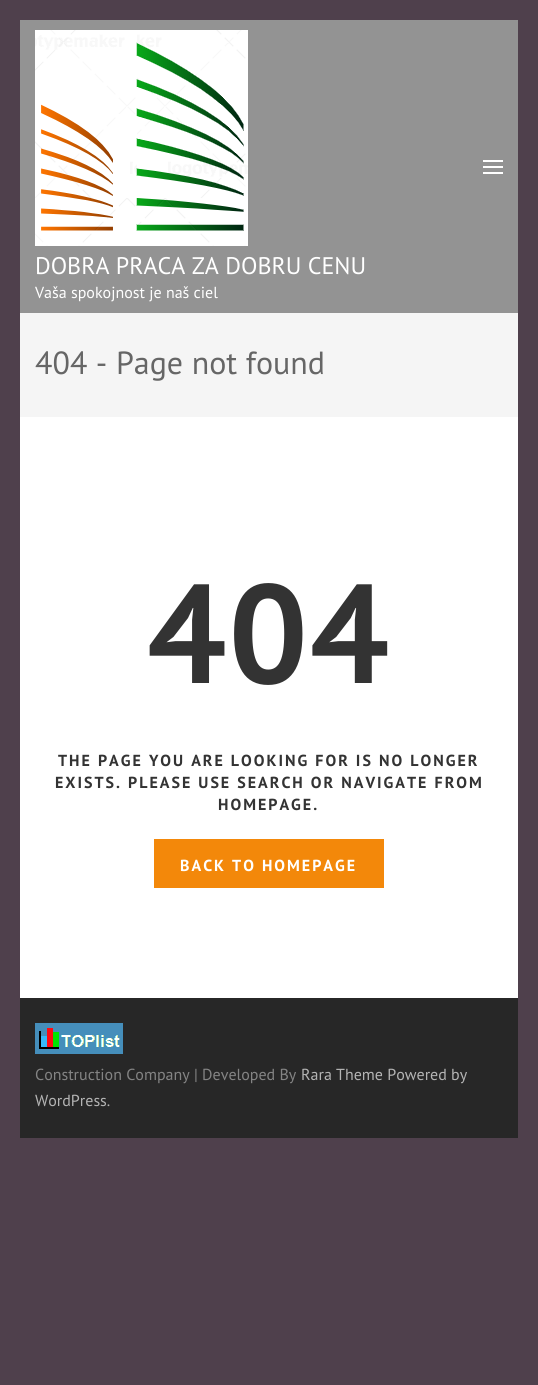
import math
import cairo

surface = cairo.ImageSurface(cairo.FORMAT_RGB24, 538, 1385)
c = cairo.Context(surface)
options = cairo.FontOptions()
options.set_hint_metrics(cairo.HINT_METRICS_OFF)
options.set_hint_style(cairo.HINT_STYLE_NONE)
c.set_font_options(options)
c.set_miter_limit(4)
def C(code):
 c.set_source_rgb(*(v / 255 for v in bytes.fromhex(code[-6:])))
def F(family, size, italic, bold):
 c.select_font_face(family, cairo.FONT_SLANT_ITALIC if italic else cairo.FONT_SLANT_NORMAL, cairo.FONT_WEIGHT_BOLD if bold else cairo.FONT_WEIGHT_NORMAL)
 c.set_font_size(size)
def T(x, y, s):
 c.move_to(x, y)
 c.show_text(s)
def L(x, y, s, letter, word):
 c.move_to(x, y)
 for ch in s:
  c.show_text(ch)
  c.rel_move_to(letter + word * (ch == ' '), 0)
def R(x, y, w, h):
 c.rectangle(x, y, w, h)
 c.fill()
def I(path, x, y, w, h):
 c.save()
 c.set_source_surface(cairo.ImageSurface.create_from_png(path), x, y)
 c.rectangle(x, y, w, h)
 c.fill()
 c.restore()
C('4f404c')
c.paint()
C('ffffff')
R(20,417,498,581)
C('939393')
R(20,20,498,293)
C('ffffff')
R(483,160,20,2)
R(483,166,20,2)
R(483,172,20,2)
I('1.png',35,30,213,216)
F('PT Sans',24,0,0)
T(35,274,'DOBRA PRACA ZA DOBRU CENU')
F('PT Sans',16,0,0)
T(35,298,'Vaša spokojnost je naš ciel')
C('f5f5f5')
R(20,313,498,104)
F('PT Sans',32,0,0)
C('666666')
T(35,374,'404 - Page not found')
F('PT Sans',140,0,1)
C('333333')
L(147,683,'404',2,0)
F('PT Sans',16,0,1)
L(58,766,'THE PAGE YOU ARE LOOKING FOR IS NO LONGER',2,0)
L(55,788,'EXISTS. PLEASE USE SEARCH OR NAVIGATE FROM',2,0)
L(218,810,'HOMEPAGE.',2,0)
C('f3880a')
R(154,839,230,49)
C('ffffff')
L(180,871,'BACK TO HOMEPAGE',2,0)
C('272727')
R(20,998,498,140)
I('2.png',35,1023,88,31)
F('PT Sans',16,0,0)
C('848484')
T(35,1080,'Construction Company | Developed By')
C('b4b4b4')
T(301,1080,'Rara Theme Powered by')
T(35,1106,'WordPress.')
surface.write_to_png('o.png')
